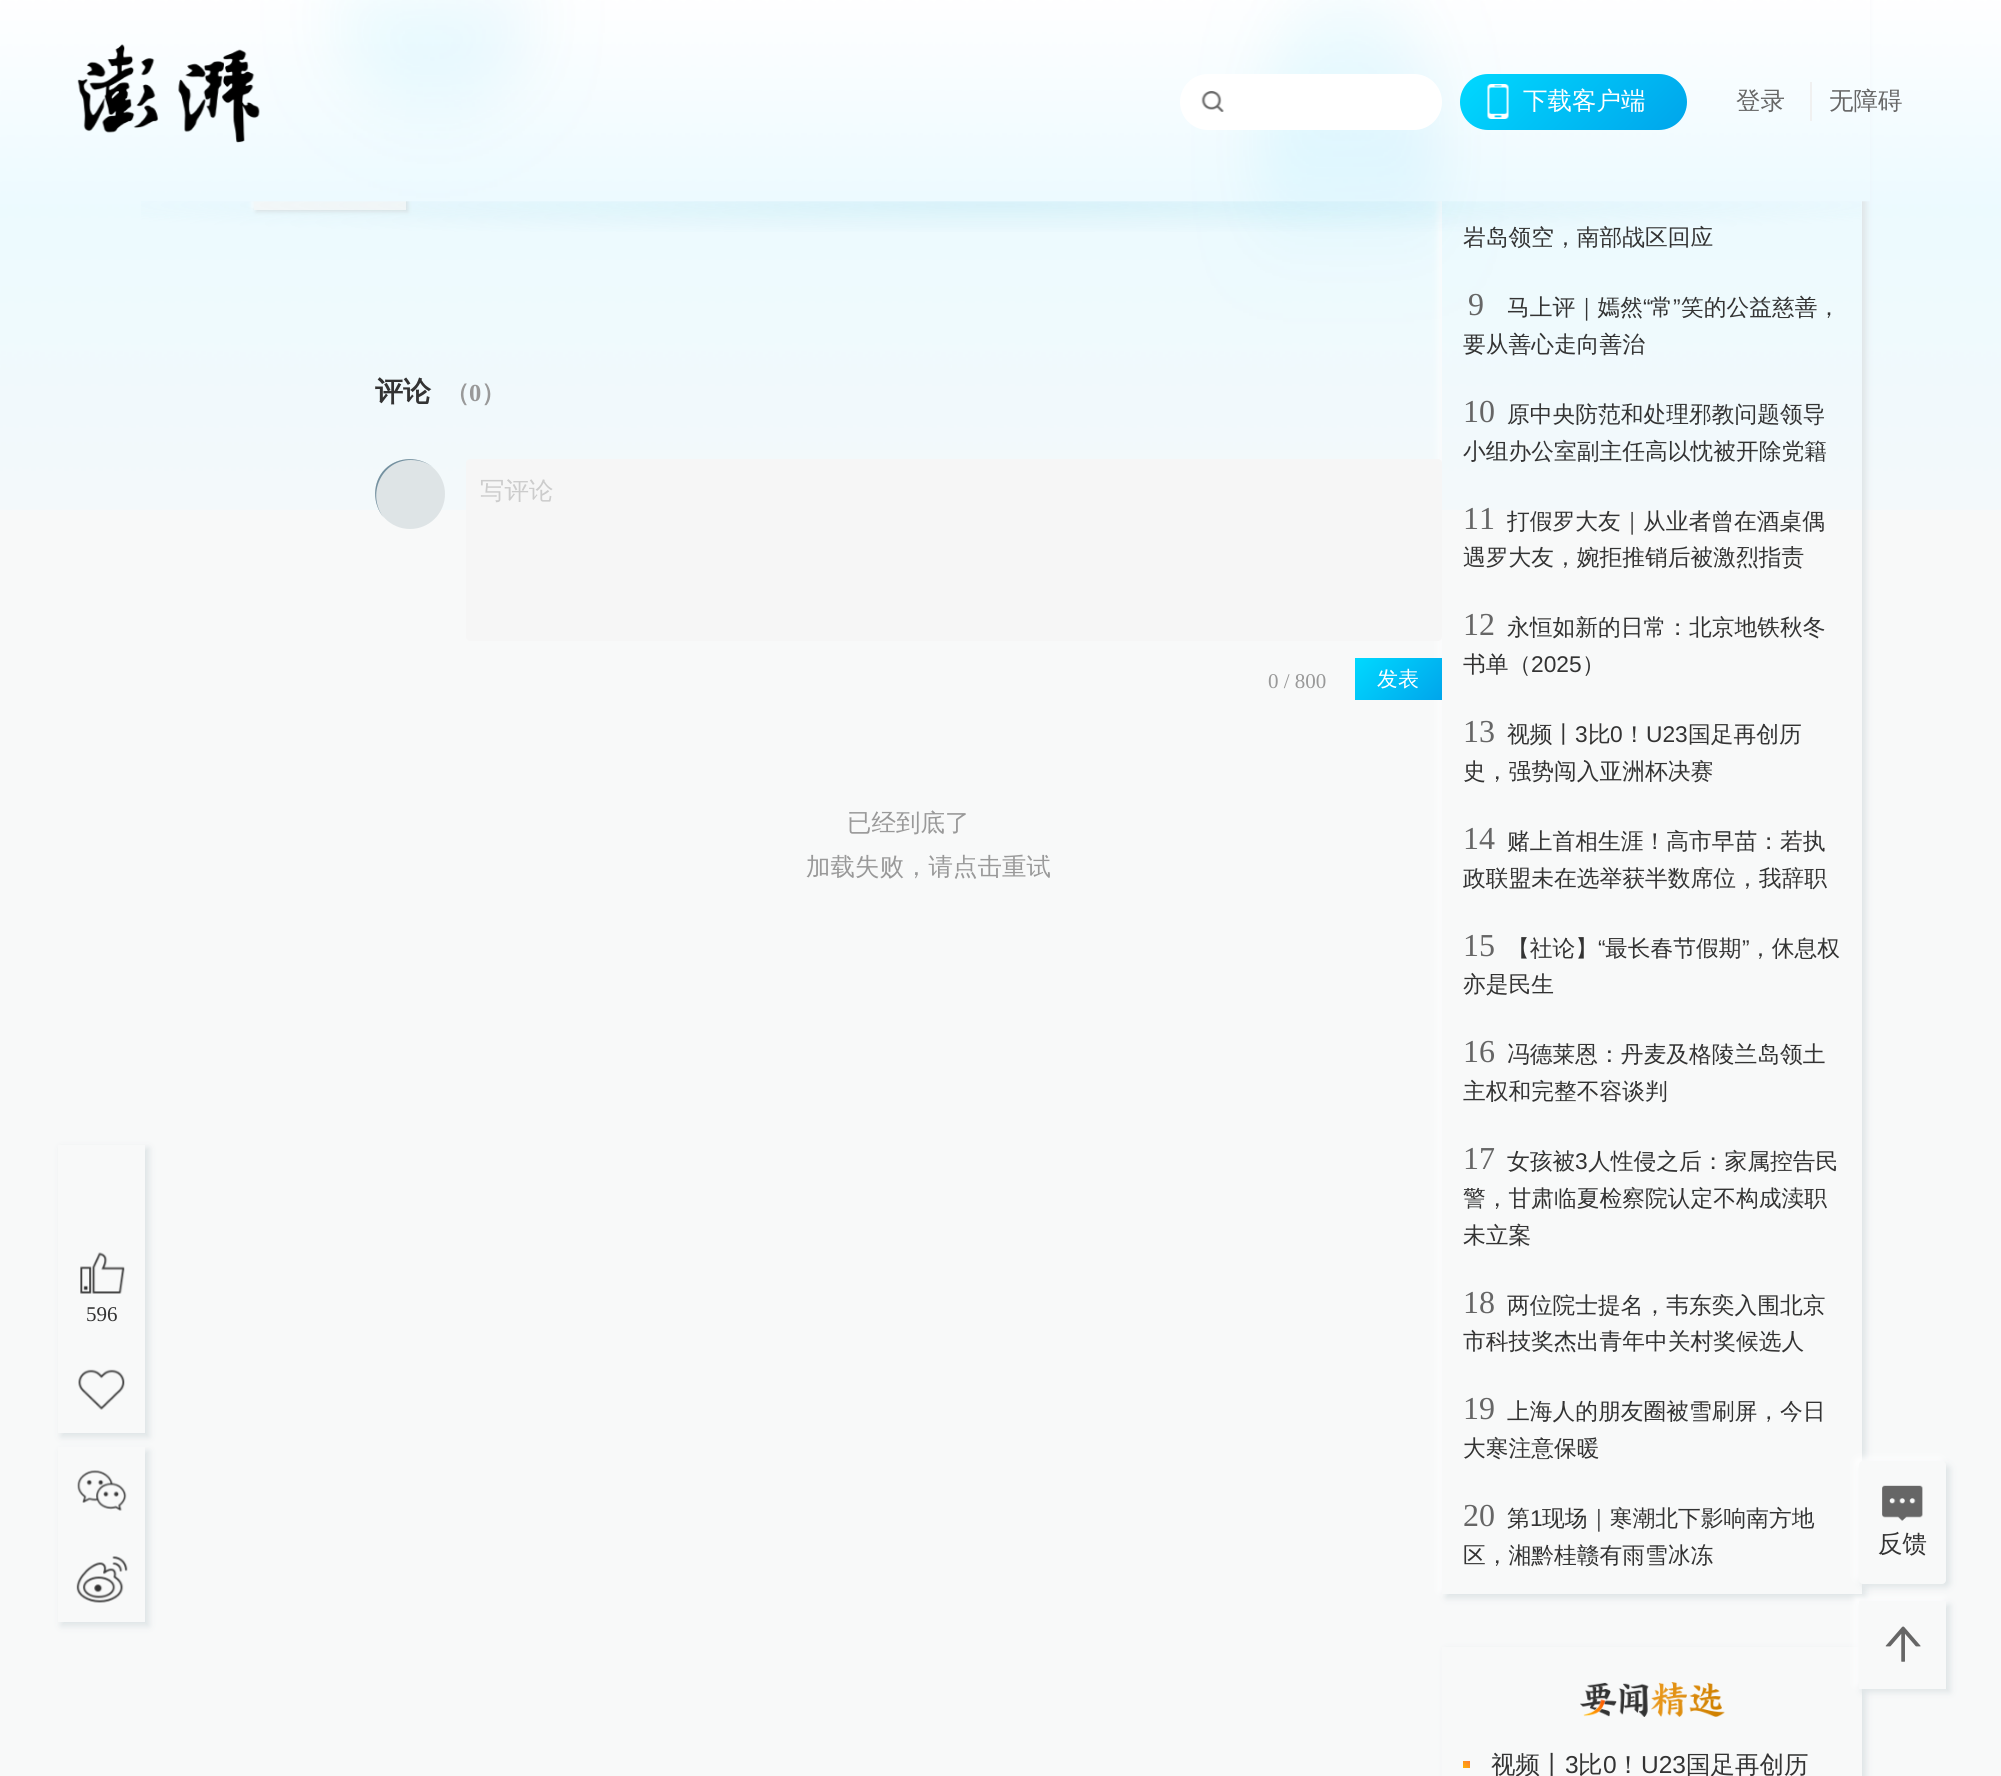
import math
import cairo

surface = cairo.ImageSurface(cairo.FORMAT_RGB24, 2001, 1776)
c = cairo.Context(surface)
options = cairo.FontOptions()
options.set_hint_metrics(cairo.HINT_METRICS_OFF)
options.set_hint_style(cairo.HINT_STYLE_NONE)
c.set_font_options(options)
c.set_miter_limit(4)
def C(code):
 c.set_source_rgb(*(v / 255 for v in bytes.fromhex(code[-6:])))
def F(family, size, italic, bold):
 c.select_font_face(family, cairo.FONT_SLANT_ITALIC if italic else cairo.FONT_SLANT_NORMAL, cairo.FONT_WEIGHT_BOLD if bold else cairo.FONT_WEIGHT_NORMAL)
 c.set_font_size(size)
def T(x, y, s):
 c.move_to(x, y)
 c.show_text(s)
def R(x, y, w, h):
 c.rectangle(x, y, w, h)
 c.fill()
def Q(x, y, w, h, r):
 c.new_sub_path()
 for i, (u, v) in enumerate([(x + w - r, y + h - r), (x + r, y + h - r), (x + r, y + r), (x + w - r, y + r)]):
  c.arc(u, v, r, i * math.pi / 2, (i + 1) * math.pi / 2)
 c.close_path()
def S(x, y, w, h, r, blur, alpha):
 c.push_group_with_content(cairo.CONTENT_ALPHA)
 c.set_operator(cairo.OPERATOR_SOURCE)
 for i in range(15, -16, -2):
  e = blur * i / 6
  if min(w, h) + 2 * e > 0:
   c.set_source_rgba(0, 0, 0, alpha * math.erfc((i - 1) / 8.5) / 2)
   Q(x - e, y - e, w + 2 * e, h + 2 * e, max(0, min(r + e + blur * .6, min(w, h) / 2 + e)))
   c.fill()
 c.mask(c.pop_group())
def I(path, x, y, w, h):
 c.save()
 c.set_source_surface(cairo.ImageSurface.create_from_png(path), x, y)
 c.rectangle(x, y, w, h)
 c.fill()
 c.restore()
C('f8f9f9')
c.paint()
I('1.png',0,0,2001,510)
C('ffffff')
S(252,154,152,54,0,2,1)
C('dee4e6')
S(256,158,152,54,0,2,1)
C('f8f9f9')
R(254,201,152,9)
c.save()
c.set_fill_rule(cairo.FILL_RULE_EVEN_ODD)
c.new_path()
c.move_to(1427,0)
c.line_to(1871,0)
c.line_to(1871,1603)
c.line_to(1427,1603)
c.close_path()
c.move_to(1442,-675)
c.line_to(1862,-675)
c.line_to(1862,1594)
c.line_to(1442,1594)
c.close_path()
c.clip()
C('ffffff')
S(1439,-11,420,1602,0,3.5,1)
c.restore()
c.save()
c.set_fill_rule(cairo.FILL_RULE_EVEN_ODD)
c.new_path()
c.move_to(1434,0)
c.line_to(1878,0)
c.line_to(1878,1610)
c.line_to(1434,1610)
c.close_path()
c.move_to(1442,-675)
c.line_to(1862,-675)
c.line_to(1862,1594)
c.line_to(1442,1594)
c.close_path()
c.clip()
C('dee4e6')
S(1446,-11,420,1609,0,3.5,1)
c.restore()
gradient = cairo.RadialGradient(0,0,0,0,0,1)
gradient.set_matrix(cairo.Matrix(1 / 1001, 0, 0, 1 / 32, -1 * 1001 / 1001, -1 * 205 / 32))
gradient.add_color_stop_rgba(0,0.537,0.812,0.894,.2)
gradient.add_color_stop_rgba(.5,0.565,0.82,0.894,.1)
gradient.add_color_stop_rgba(1,0.565,0.82,0.894,0)
c.set_source(gradient)
R(141,201,1720,31)
I('2.png',208,0,1662,202)
I('3.png',77,44,183,99)
C('ffffff')
Q(1180,74,262,56,28)
c.fill()
I('4.png',1201,91,23,21)
gradient = cairo.LinearGradient(1502,31,1644,172)
gradient.add_color_stop_rgba(0,0,0.851,1,1)
gradient.add_color_stop_rgba(1,0,0.647,0.922,1)
c.set_source(gradient)
Q(1460,74,227,56,28)
c.fill()
I('5.png',1487,84,22,35)
F('WenQuanYi Zen Hei Medium',24.5,0,0)
C('ffffff')
T(1523,109,'下载客户端')
C('666666')
T(1736,109,'登录')
C('f0f0f0')
R(1810,82,2,39)
C('666666')
T(1829,109,'无障碍')
c.save()
c.set_fill_rule(cairo.FILL_RULE_EVEN_ODD)
c.new_path()
c.move_to(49,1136)
c.line_to(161,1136)
c.line_to(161,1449)
c.line_to(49,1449)
c.close_path()
c.move_to(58,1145)
c.line_to(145,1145)
c.line_to(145,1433)
c.line_to(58,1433)
c.close_path()
c.clip()
C('dee4e6')
S(61,1148,88,289,0,3.5,1)
c.restore()
I('6.png',80,1252,45,42)
F('Liberation Serif',21,0,0)
C('333333')
T(86,1321,'596')
I('7.png',78,1369,47,41)
c.save()
c.set_fill_rule(cairo.FILL_RULE_EVEN_ODD)
c.new_path()
c.move_to(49,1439)
c.line_to(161,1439)
c.line_to(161,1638)
c.line_to(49,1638)
c.close_path()
c.move_to(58,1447)
c.line_to(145,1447)
c.line_to(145,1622)
c.line_to(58,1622)
c.close_path()
c.clip()
C('dee4e6')
S(61,1451,88,175,0,3.5,1)
c.restore()
I('8.png',77,1470,50,41)
I('9.png',76,1556,52,47)
F('WenQuanYi Zen Hei',28,0,1)
T(375,401,'评论')
F('WenQuanYi Zen Hei',24.5,0,1)
C('999999')
T(445,401,'（')
F('Liberation Serif',24.5,0,1)
T(469,401,'0')
F('WenQuanYi Zen Hei',24.5,0,1)
T(481,401,'）')
C('dee4e6')
c.new_path()
c.arc(410,494,35,0,2 * math.pi)
c.fill()
C('7491a0')
c.new_path()
c.move_to(411,460)
c.curve_to(420,460,428,463,434,468)
c.curve_to(420,456,398,456,385,469)
c.curve_to(372,482,372,504,384,518)
c.curve_to(366,495,381,460,411,460)
c.close_path()
c.fill()
C('f6f6f6')
Q(466,459,976,182,4)
c.fill()
F('WenQuanYi Zen Hei Medium',24.5,0,0)
C('cccccc')
T(480,499,'写评论')
F('Liberation Serif',21,0,0)
C('999999')
T(1268,688,'0 / 800')
gradient = cairo.LinearGradient(1366,647,1431,711)
gradient.add_color_stop_rgba(0,0,0.851,1,1)
gradient.add_color_stop_rgba(1,0,0.647,0.922,1)
c.set_source(gradient)
R(1355,658,87,42)
F('WenQuanYi Zen Hei Medium',21,0,0)
C('ffffff')
T(1377,686,'发表')
F('WenQuanYi Zen Hei Medium',24.5,0,0)
C('999999')
T(847,831,'已经到底了')
T(806,875,'加载失败，请点击重试')
F('WenQuanYi Zen Hei Medium',22.75,0,0)
C('333333')
T(1463,245,'岩岛领空，南部战区回应')
F('Liberation Serif',32,0,0)
C('666666')
T(1468,315,'9')
F('WenQuanYi Zen Hei Medium',22.75,0,0)
C('333333')
T(1507,315,'马上评｜嫣然')
F('Liberation Sans',22.75,0,0)
T(1643,315,'“')
F('WenQuanYi Zen Hei Medium',22.75,0,0)
T(1650,315,'常')
F('Liberation Sans',22.75,0,0)
T(1673,315,'”')
F('WenQuanYi Zen Hei Medium',22.75,0,0)
T(1681,315,'笑的公益慈善，')
T(1463,352,'要从善心走向善治')
F('Liberation Serif',32,0,0)
C('666666')
T(1463,422,'10')
F('WenQuanYi Zen Hei Medium',22.75,0,0)
C('333333')
T(1507,422,'原中央防范和处理邪教问题领导')
T(1463,459,'小组办公室副主任高以忱被开除党籍')
F('Liberation Serif',32,0,0)
C('666666')
T(1463,529,'11')
F('WenQuanYi Zen Hei Medium',22.75,0,0)
C('333333')
T(1507,529,'打假罗大友｜从业者曾在酒桌偶')
T(1463,565,'遇罗大友，婉拒推销后被激烈指责')
F('Liberation Serif',32,0,0)
C('666666')
T(1463,635,'12')
F('WenQuanYi Zen Hei Medium',22.75,0,0)
C('333333')
T(1507,635,'永恒如新的日常：北京地铁秋冬')
T(1463,672,'书单（')
F('Liberation Sans',22.75,0,0)
T(1531,672,'2025')
F('WenQuanYi Zen Hei Medium',22.75,0,0)
T(1582,672,'）')
F('Liberation Serif',32,0,0)
C('666666')
T(1463,742,'13')
F('WenQuanYi Zen Hei Medium',22.75,0,0)
C('333333')
T(1507,742,'视频丨')
F('Liberation Sans',22.75,0,0)
T(1575,742,'3')
F('WenQuanYi Zen Hei Medium',22.75,0,0)
T(1588,742,'比')
F('Liberation Sans',22.75,0,0)
T(1610,742,'0')
F('WenQuanYi Zen Hei Medium',22.75,0,0)
T(1623,742,'！')
F('Liberation Sans',22.75,0,0)
T(1646,742,'U23')
F('WenQuanYi Zen Hei Medium',22.75,0,0)
T(1688,742,'国足再创历')
T(1463,779,'史，强势闯入亚洲杯决赛')
F('Liberation Serif',32,0,0)
C('666666')
T(1463,849,'14')
F('WenQuanYi Zen Hei Medium',22.75,0,0)
C('333333')
T(1507,849,'赌上首相生涯！高市早苗：若执')
T(1463,886,'政联盟未在选举获半数席位，我辞职')
F('Liberation Serif',32,0,0)
C('666666')
T(1463,956,'15')
F('WenQuanYi Zen Hei Medium',22.75,0,0)
C('333333')
T(1507,956,'【社论】')
F('Liberation Sans',22.75,0,0)
T(1598,956,'“')
F('WenQuanYi Zen Hei Medium',22.75,0,0)
T(1605,956,'最长春节假期')
F('Liberation Sans',22.75,0,0)
T(1742,956,'”')
F('WenQuanYi Zen Hei Medium',22.75,0,0)
T(1749,956,'，休息权')
T(1463,992,'亦是民生')
F('Liberation Serif',32,0,0)
C('666666')
T(1463,1062,'16')
F('WenQuanYi Zen Hei Medium',22.75,0,0)
C('333333')
T(1507,1062,'冯德莱恩：丹麦及格陵兰岛领土')
T(1463,1099,'主权和完整不容谈判')
F('Liberation Serif',32,0,0)
C('666666')
T(1463,1169,'17')
F('WenQuanYi Zen Hei Medium',22.75,0,0)
C('333333')
T(1507,1169,'女孩被')
F('Liberation Sans',22.75,0,0)
T(1575,1169,'3')
F('WenQuanYi Zen Hei Medium',22.75,0,0)
T(1588,1169,'人性侵之后：家属控告民')
T(1463,1206,'警，甘肃临夏检察院认定不构成渎职')
T(1463,1243,'未立案')
F('Liberation Serif',32,0,0)
C('666666')
T(1463,1313,'18')
F('WenQuanYi Zen Hei Medium',22.75,0,0)
C('333333')
T(1507,1313,'两位院士提名，韦东奕入围北京')
T(1463,1349,'市科技奖杰出青年中关村奖候选人')
F('Liberation Serif',32,0,0)
C('666666')
T(1463,1419,'19')
F('WenQuanYi Zen Hei Medium',22.75,0,0)
C('333333')
T(1507,1419,'上海人的朋友圈被雪刷屏，今日')
T(1463,1456,'大寒注意保暖')
F('Liberation Serif',32,0,0)
C('666666')
T(1463,1526,'20')
F('WenQuanYi Zen Hei Medium',22.75,0,0)
C('333333')
T(1507,1526,'第')
F('Liberation Sans',22.75,0,0)
T(1530,1526,'1')
F('WenQuanYi Zen Hei Medium',22.75,0,0)
T(1542,1526,'现场｜寒潮北下影响南方地')
T(1463,1563,'区，湘黔桂赣有雨雪冰冻')
c.save()
c.set_fill_rule(cairo.FILL_RULE_EVEN_ODD)
c.new_path()
c.move_to(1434,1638)
c.line_to(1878,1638)
c.line_to(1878,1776)
c.line_to(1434,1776)
c.close_path()
c.move_to(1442,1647)
c.line_to(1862,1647)
c.line_to(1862,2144)
c.line_to(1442,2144)
c.close_path()
c.clip()
C('dee4e6')
S(1446,1650,420,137,0,3.5,1)
c.restore()
I('10.png',1580,1682,145,35)
gradient = cairo.LinearGradient(1463,1768,1470,1760)
gradient.add_color_stop_rgba(0,0.992,0.706,0.016,1)
gradient.add_color_stop_rgba(1,1,0.467,0.2,1)
c.set_source(gradient)
R(1463,1761,7,7)
F('WenQuanYi Zen Hei Medium',24.5,0,0)
C('333333')
T(1491,1773,'视频丨')
F('Liberation Sans',24.5,0,0)
T(1565,1773,'3')
F('WenQuanYi Zen Hei Medium',24.5,0,0)
T(1578,1773,'比')
F('Liberation Sans',24.5,0,0)
T(1603,1773,'0')
F('WenQuanYi Zen Hei Medium',24.5,0,0)
T(1616,1773,'！')
F('Liberation Sans',24.5,0,0)
T(1641,1773,'U23')
F('WenQuanYi Zen Hei Medium',24.5,0,0)
T(1686,1773,'国足再创历')
C('ffffff')
S(1855,1458,88,122,4,3.5,1)
C('dee4e6')
S(1862,1465,88,122,4,3.5,1)
C('f8f9f9')
Q(1859,1461,87,123,4)
c.fill()
I('11.png',1882,1485,41,36)
C('333333')
T(1878,1552,'反馈')
C('ffffff')
S(1855,1598,88,87,0,3.5,1)
C('dee4e6')
S(1862,1605,88,87,0,3.5,1)
C('f8f9f9')
R(1859,1601,87,88)
I('12.png',1885,1626,36,36)
surface.write_to_png('o.png')
